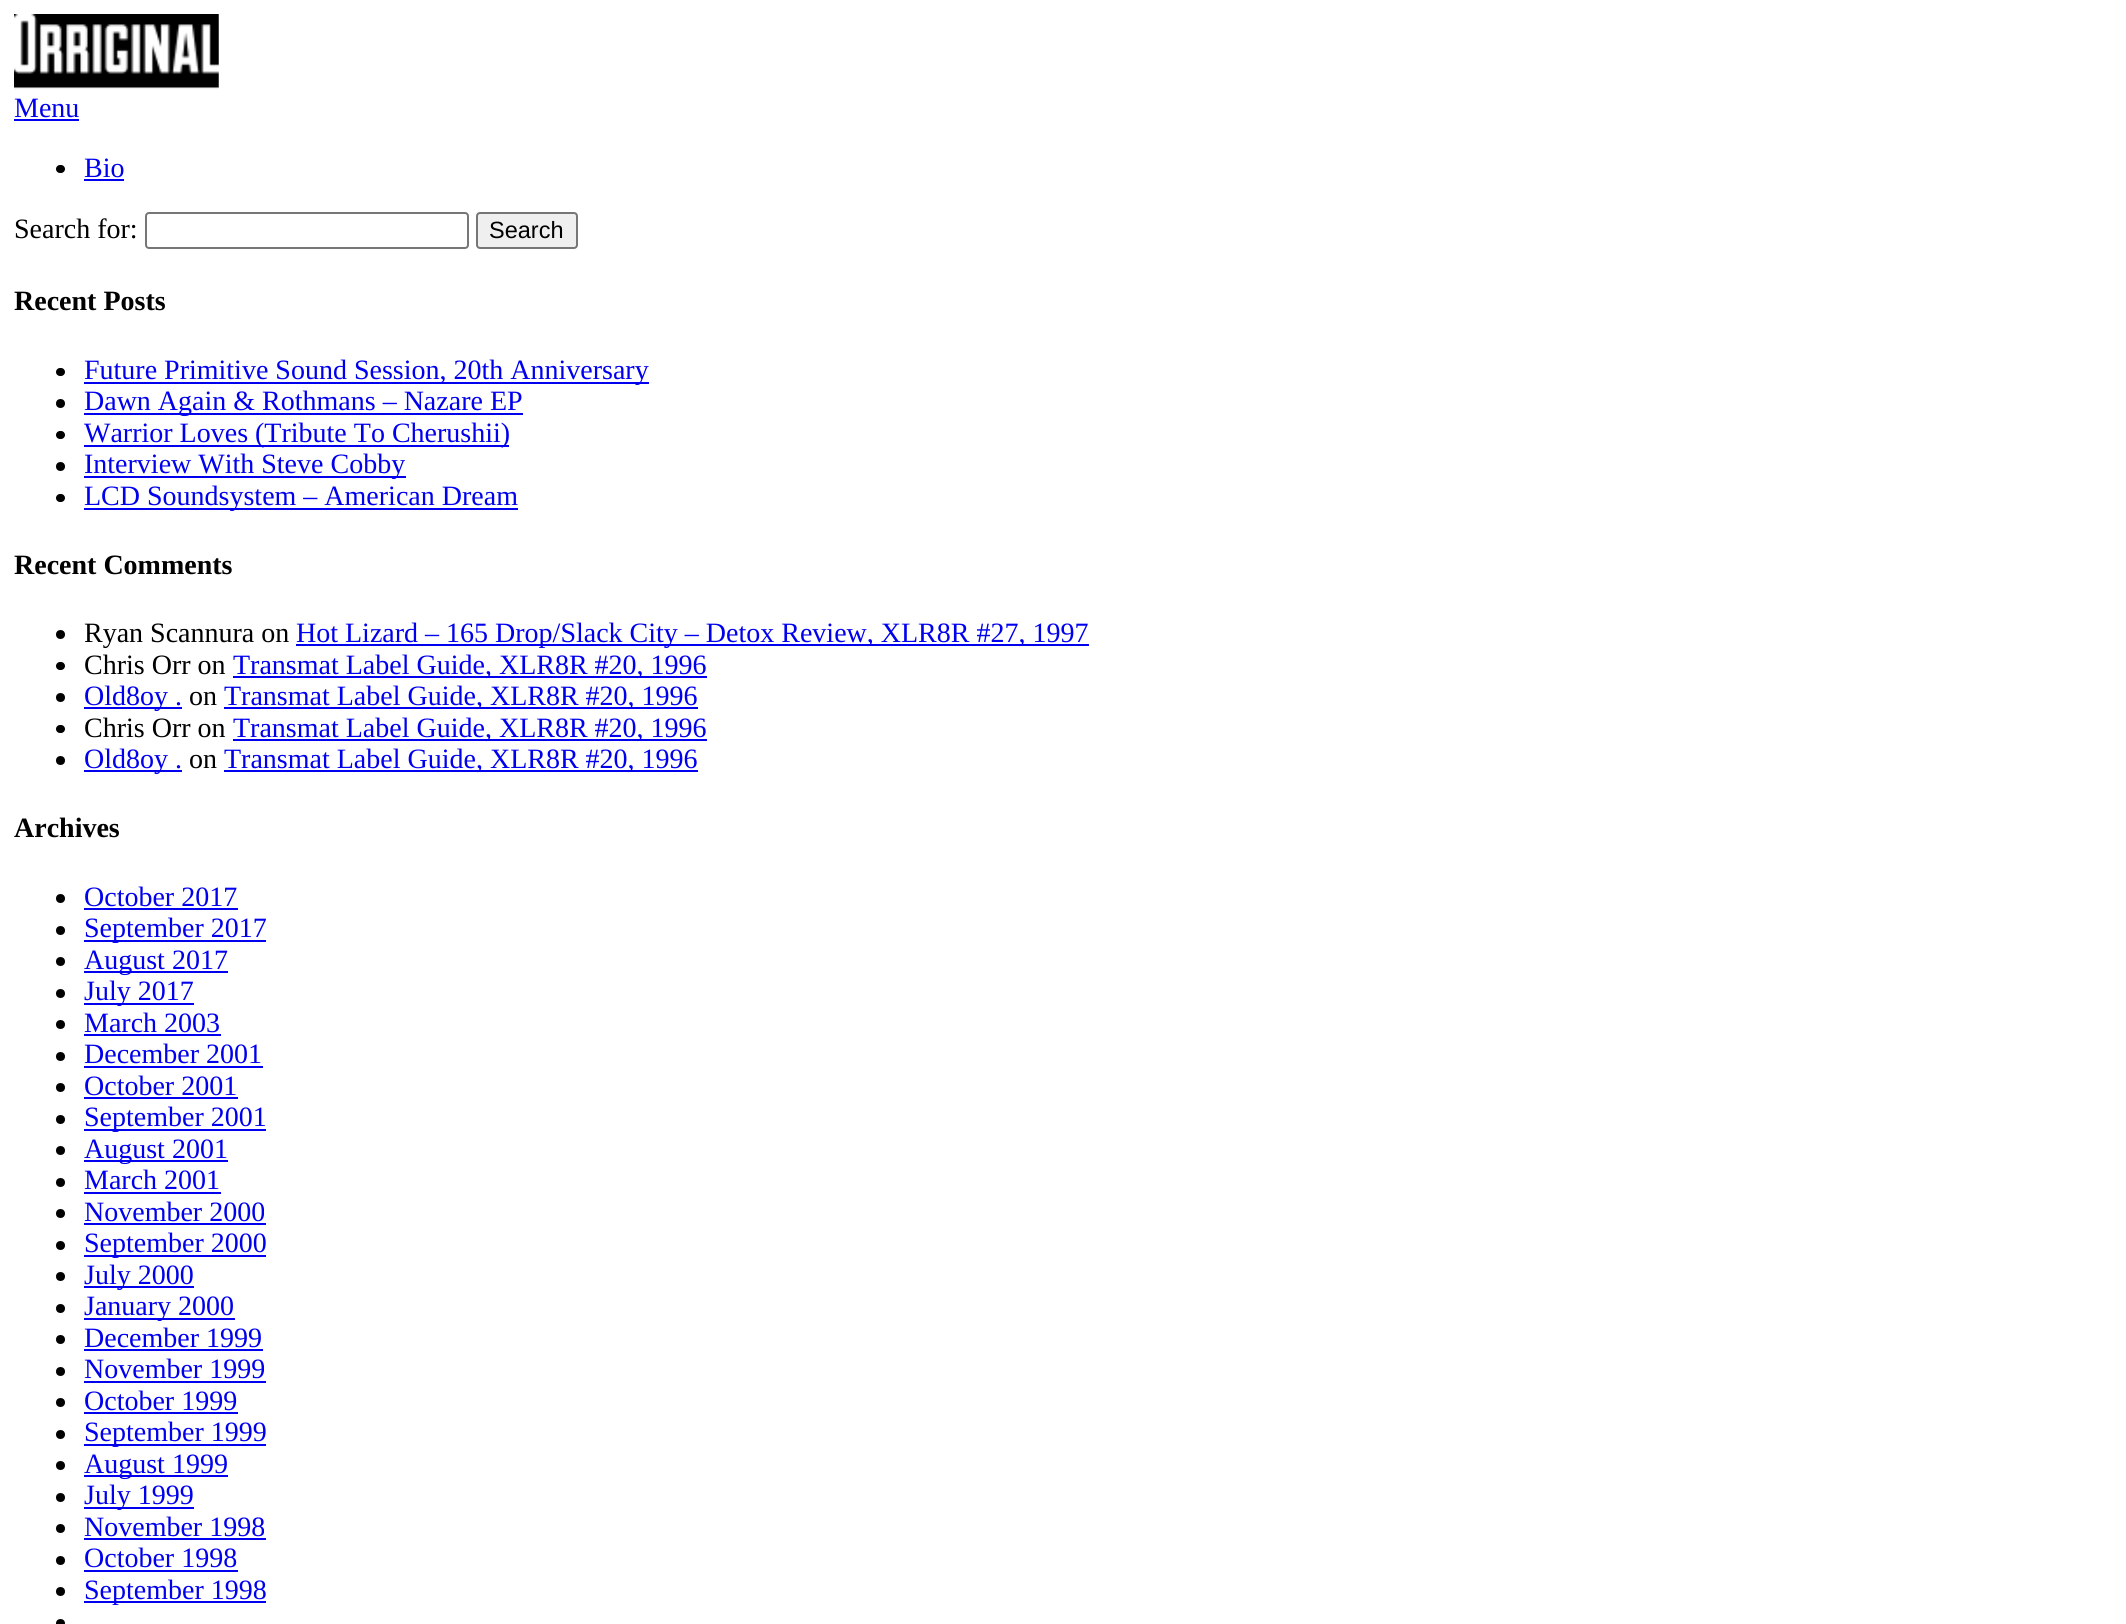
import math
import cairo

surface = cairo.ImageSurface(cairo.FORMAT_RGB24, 2126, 1624)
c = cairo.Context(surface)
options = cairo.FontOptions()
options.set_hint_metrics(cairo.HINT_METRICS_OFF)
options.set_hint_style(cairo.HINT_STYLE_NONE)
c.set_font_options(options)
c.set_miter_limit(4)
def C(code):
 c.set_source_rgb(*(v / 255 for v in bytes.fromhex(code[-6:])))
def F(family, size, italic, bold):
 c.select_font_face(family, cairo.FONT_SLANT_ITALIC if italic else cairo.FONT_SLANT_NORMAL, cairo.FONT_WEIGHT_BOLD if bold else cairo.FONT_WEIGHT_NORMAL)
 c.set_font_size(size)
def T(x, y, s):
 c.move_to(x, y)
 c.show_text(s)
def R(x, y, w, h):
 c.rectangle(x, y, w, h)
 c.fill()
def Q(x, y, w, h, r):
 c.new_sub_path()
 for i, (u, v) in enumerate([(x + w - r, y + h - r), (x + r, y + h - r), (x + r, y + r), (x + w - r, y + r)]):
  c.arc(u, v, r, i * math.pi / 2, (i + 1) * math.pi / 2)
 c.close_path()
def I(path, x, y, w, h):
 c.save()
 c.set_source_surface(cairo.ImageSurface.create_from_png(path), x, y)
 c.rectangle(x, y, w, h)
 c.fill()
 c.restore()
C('ffffff')
c.paint()
I('1.png',14,14,205,76)
F('Liberation Serif',28,0,0)
C('0000ee')
T(14,117,'Menu')
R(14,119,65,2)
C('000000')
Q(56,165,9,8,4)
c.fill()
C('0000ee')
T(84,177,'Bio')
R(84,179,40,2)
C('000000')
T(14,238,'Search for:')
Q(146,213,322,35,3)
C('767676')
c.stroke()
C('efefef')
Q(477,213,100,35,3)
c.fill_preserve()
C('767676')
c.stroke()
F('Liberation Sans',23.5,0,0)
C('000000')
T(489,238,'Search')
F('Liberation Serif',28,0,1)
T(14,310,'Recent Posts')
Q(56,368,9,8,4)
c.fill()
C('0000ee')
R(84,382,565,2)
F('Liberation Serif',28,0,0)
T(84,379,'Future Primitive Sound Session, 20th Anniversary')
C('000000')
c.new_path()
c.arc(60.5,403.5,4.5,0,2 * math.pi)
c.fill()
C('0000ee')
R(84,413,439,2)
T(84,410,'Dawn Again & Rothmans – Nazare EP')
C('000000')
Q(56,431,9,8,4)
c.fill()
C('0000ee')
R(84,445,425,2)
T(84,442,'Warrior Loves (Tribute To Cherushii)')
C('000000')
c.new_path()
c.arc(60.5,466.5,4.5,0,2 * math.pi)
c.fill()
C('0000ee')
R(84,476,322,2)
T(84,473,'Interview With Steve Cobby')
C('000000')
Q(56,494,9,8,4)
c.fill()
C('0000ee')
R(84,508,434,2)
T(84,505,'LCD Soundsystem – American Dream')
F('Liberation Serif',28,0,1)
C('000000')
T(14,574,'Recent Comments')
c.new_path()
c.arc(60.5,634.5,4.5,0,2 * math.pi)
c.fill()
F('Liberation Serif',28,0,0)
T(84,642,'Ryan Scannura on')
C('0000ee')
R(296,644,793,2)
T(296,642,'Hot Lizard – 165 Drop/Slack City – Detox Review, XLR8R #27, 1997')
C('000000')
Q(56,662,9,8,4)
c.fill()
T(84,674,'Chris Orr on')
C('0000ee')
R(233,676,474,2)
T(233,674,'Transmat Label Guide, XLR8R #20, 1996')
C('000000')
c.new_path()
c.arc(60.5,697.5,4.5,0,2 * math.pi)
c.fill()
C('0000ee')
R(84,707,98,2)
T(84,705,'Old8oy .')
C('000000')
T(189,705,'on')
C('0000ee')
R(224,707,474,2)
T(224,705,'Transmat Label Guide, XLR8R #20, 1996')
C('000000')
Q(56,725,9,8,4)
c.fill()
T(84,737,'Chris Orr on')
C('0000ee')
R(233,739,474,2)
T(233,737,'Transmat Label Guide, XLR8R #20, 1996')
C('000000')
c.new_path()
c.arc(60.5,760.5,4.5,0,2 * math.pi)
c.fill()
C('0000ee')
R(84,770,98,2)
T(84,768,'Old8oy .')
C('000000')
T(189,768,'on')
C('0000ee')
R(224,770,474,2)
T(224,768,'Transmat Label Guide, XLR8R #20, 1996')
F('Liberation Serif',28,0,1)
C('000000')
T(14,837,'Archives')
c.new_path()
c.arc(60.5,898.5,4.5,0,2 * math.pi)
c.fill()
F('Liberation Serif',28,0,0)
C('0000ee')
T(84,906,'October 2017')
R(84,908,154,2)
C('000000')
c.new_path()
c.arc(60.5,930.5,4.5,0,2 * math.pi)
c.fill()
C('0000ee')
R(84,940,182,2)
T(84,937,'September 2017')
C('000000')
c.new_path()
c.arc(60.5,961.5,4.5,0,2 * math.pi)
c.fill()
C('0000ee')
R(84,971,144,2)
T(84,969,'August 2017')
C('000000')
c.new_path()
c.arc(60.5,993.5,4.5,0,2 * math.pi)
c.fill()
C('0000ee')
R(84,1003,110,2)
T(84,1000,'July 2017')
C('000000')
c.new_path()
c.arc(60.5,1024.5,4.5,0,2 * math.pi)
c.fill()
C('0000ee')
T(84,1032,'March 2003')
R(84,1034,137,2)
C('000000')
c.new_path()
c.arc(60.5,1056.5,4.5,0,2 * math.pi)
c.fill()
C('0000ee')
T(84,1063,'December 2001')
R(84,1066,179,2)
C('000000')
c.new_path()
c.arc(60.5,1087.5,4.5,0,2 * math.pi)
c.fill()
C('0000ee')
T(84,1095,'October 2001')
R(84,1097,154,2)
C('000000')
c.new_path()
c.arc(60.5,1119.5,4.5,0,2 * math.pi)
c.fill()
C('0000ee')
R(84,1129,182,2)
T(84,1126,'September 2001')
C('000000')
c.new_path()
c.arc(60.5,1150.5,4.5,0,2 * math.pi)
c.fill()
C('0000ee')
R(84,1160,144,2)
T(84,1158,'August 2001')
C('000000')
c.new_path()
c.arc(60.5,1182.5,4.5,0,2 * math.pi)
c.fill()
C('0000ee')
T(84,1189,'March 2001')
R(84,1192,137,2)
C('000000')
c.new_path()
c.arc(60.5,1213.5,4.5,0,2 * math.pi)
c.fill()
C('0000ee')
T(84,1221,'November 2000')
R(84,1223,182,2)
C('000000')
c.new_path()
c.arc(60.5,1245.5,4.5,0,2 * math.pi)
c.fill()
C('0000ee')
R(84,1255,182,2)
T(84,1252,'September 2000')
C('000000')
c.new_path()
c.arc(60.5,1276.5,4.5,0,2 * math.pi)
c.fill()
C('0000ee')
R(84,1286,110,2)
T(84,1284,'July 2000')
C('000000')
c.new_path()
c.arc(60.5,1308.5,4.5,0,2 * math.pi)
c.fill()
C('0000ee')
R(84,1318,151,2)
T(84,1315,'January 2000')
C('000000')
c.new_path()
c.arc(60.5,1339.5,4.5,0,2 * math.pi)
c.fill()
C('0000ee')
T(84,1347,'December 1999')
R(84,1349,179,2)
C('000000')
c.new_path()
c.arc(60.5,1371.5,4.5,0,2 * math.pi)
c.fill()
C('0000ee')
T(84,1378,'November 1999')
R(84,1381,182,2)
C('000000')
c.new_path()
c.arc(60.5,1402.5,4.5,0,2 * math.pi)
c.fill()
C('0000ee')
T(84,1410,'October 1999')
R(84,1412,154,2)
C('000000')
c.new_path()
c.arc(60.5,1434.5,4.5,0,2 * math.pi)
c.fill()
C('0000ee')
R(84,1444,182,2)
T(84,1441,'September 1999')
C('000000')
c.new_path()
c.arc(60.5,1465.5,4.5,0,2 * math.pi)
c.fill()
C('0000ee')
R(84,1475,144,2)
T(84,1473,'August 1999')
C('000000')
c.new_path()
c.arc(60.5,1497.5,4.5,0,2 * math.pi)
c.fill()
C('0000ee')
R(84,1507,110,2)
T(84,1504,'July 1999')
C('000000')
c.new_path()
c.arc(60.5,1528.5,4.5,0,2 * math.pi)
c.fill()
C('0000ee')
T(84,1536,'November 1998')
R(84,1538,182,2)
C('000000')
c.new_path()
c.arc(60.5,1560.5,4.5,0,2 * math.pi)
c.fill()
C('0000ee')
T(84,1567,'October 1998')
R(84,1570,154,2)
C('000000')
c.new_path()
c.arc(60.5,1591.5,4.5,0,2 * math.pi)
c.fill()
C('0000ee')
R(84,1601,182,2)
T(84,1599,'September 1998')
C('000000')
c.new_path()
c.arc(60.5,1623.5,4.5,0,2 * math.pi)
c.fill()
surface.write_to_png('o.png')
